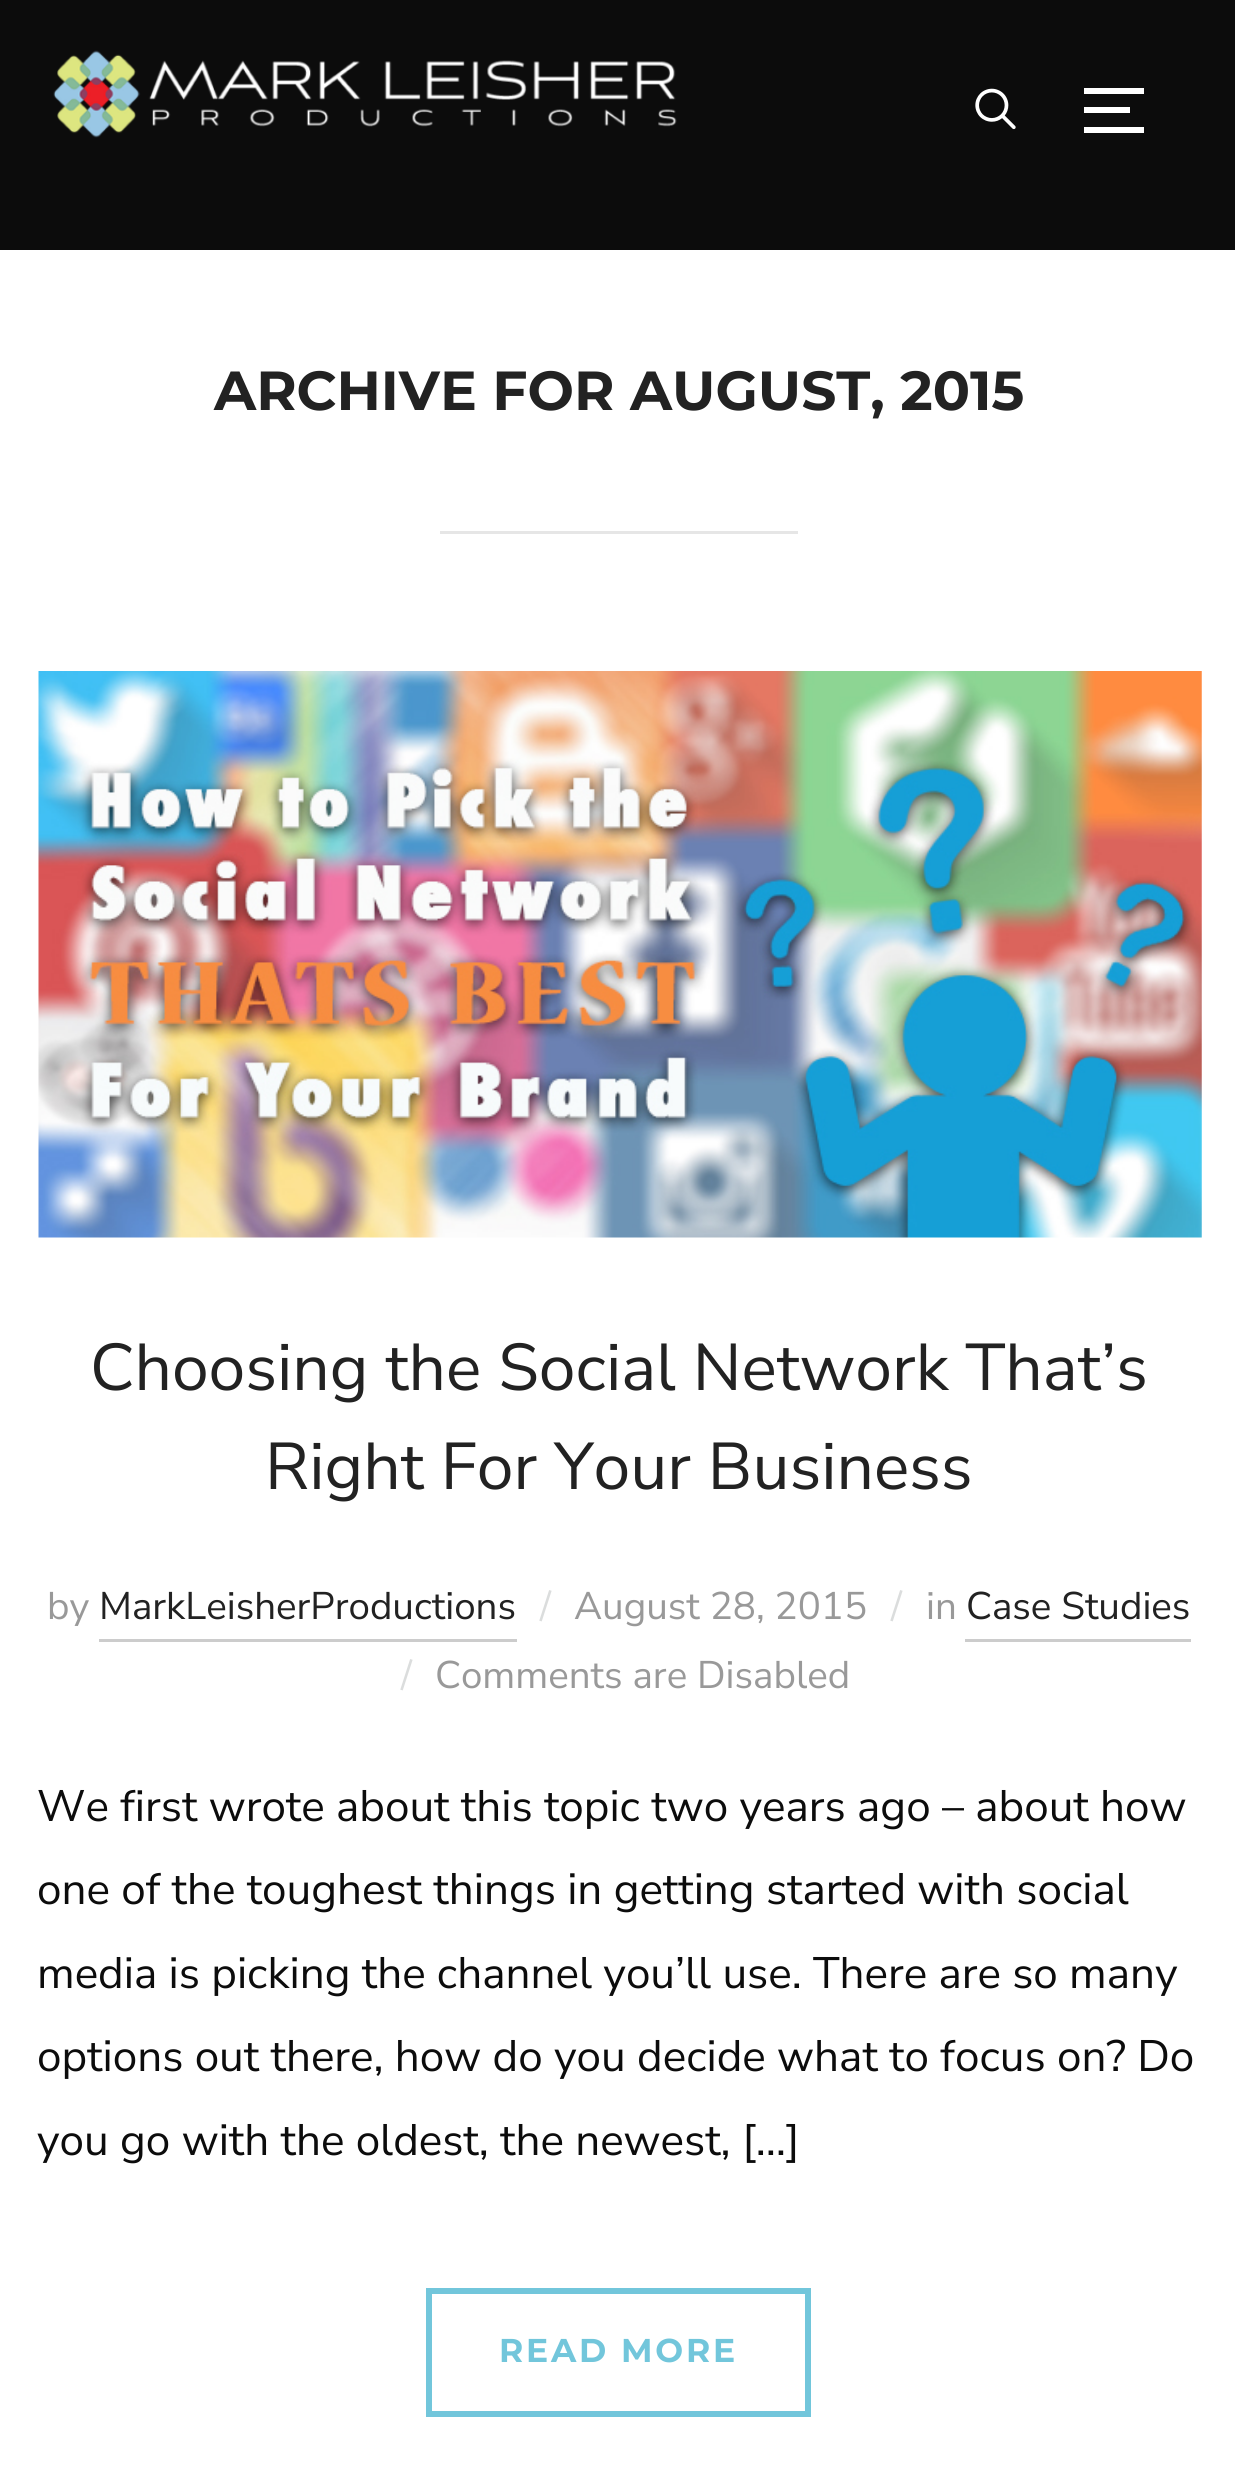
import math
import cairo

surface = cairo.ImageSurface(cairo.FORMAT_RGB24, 1235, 2470)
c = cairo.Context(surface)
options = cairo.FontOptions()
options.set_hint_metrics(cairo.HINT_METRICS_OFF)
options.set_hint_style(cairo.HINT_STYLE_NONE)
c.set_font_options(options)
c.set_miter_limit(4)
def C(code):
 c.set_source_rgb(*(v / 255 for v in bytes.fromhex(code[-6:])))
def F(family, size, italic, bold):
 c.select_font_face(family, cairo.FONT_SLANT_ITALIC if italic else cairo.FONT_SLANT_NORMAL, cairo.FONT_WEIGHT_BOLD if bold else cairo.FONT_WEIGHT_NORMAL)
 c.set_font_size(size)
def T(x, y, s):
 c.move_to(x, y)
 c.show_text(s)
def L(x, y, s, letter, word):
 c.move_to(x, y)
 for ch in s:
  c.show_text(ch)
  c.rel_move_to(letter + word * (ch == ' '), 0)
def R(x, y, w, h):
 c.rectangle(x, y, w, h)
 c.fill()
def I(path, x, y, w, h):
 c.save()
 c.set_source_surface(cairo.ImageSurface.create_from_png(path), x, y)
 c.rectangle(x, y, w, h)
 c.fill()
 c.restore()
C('ffffff')
c.paint()
C('0c0c0c')
R(0,0,1235,250)
I('1.png',53,50,624,88)
I('2.png',975,88,41,42)
C('ffffff')
R(1084,88,60,6)
R(1084,107,46,6)
R(1084,127,60,6)
F('Montserrat',55,0,1)
C('222222')
T(214,410,'ARCHIVE FOR AUGUST, 2015')
C('e6e6e6')
R(440,531,358,3)
I('3.png',38,671,1164,567)
F('Nunito Sans',66,0,0)
C('222222')
T(90,1390,'Choosing the Social Network That’s')
T(265,1489,'Right For Your Business')
F('Nunito Sans',38.5,0,0)
C('999999')
T(47,1619,'by')
C('222222')
T(99,1619,'MarkLeisherProductions')
C('cccccc')
R(99,1639,418,3)
C('dbdddd')
T(540,1619,'/')
C('999999')
T(574,1619,'August 28, 2015')
C('dbdddd')
T(891,1619,'/')
C('999999')
T(926,1619,'in')
C('222222')
T(966,1619,'Case Studies')
C('cccccc')
R(965,1639,226,3)
C('dbdddd')
T(401,1688,'/')
C('999999')
T(435,1688,'Comments are Disabled')
F('Nunito Sans',44,0,0)
C('0c0c0c')
T(37,1821,'We first wrote about this topic two years ago – about how')
T(37,1904,'one of the toughest things in getting started with social')
T(37,1988,'media is picking the channel you’ll use. There are so many')
T(37,2071,'options out there, how do you decide what to focus on? Do')
T(37,2155,'you go with the oldest, the newest, […]')
c.rectangle(429,2291,379,123)
C('72c6db')
c.set_line_width(6)
c.stroke()
F('Montserrat',33,0,1)
L(499,2362,'READ MORE',2.75,0)
surface.write_to_png('o.png')
